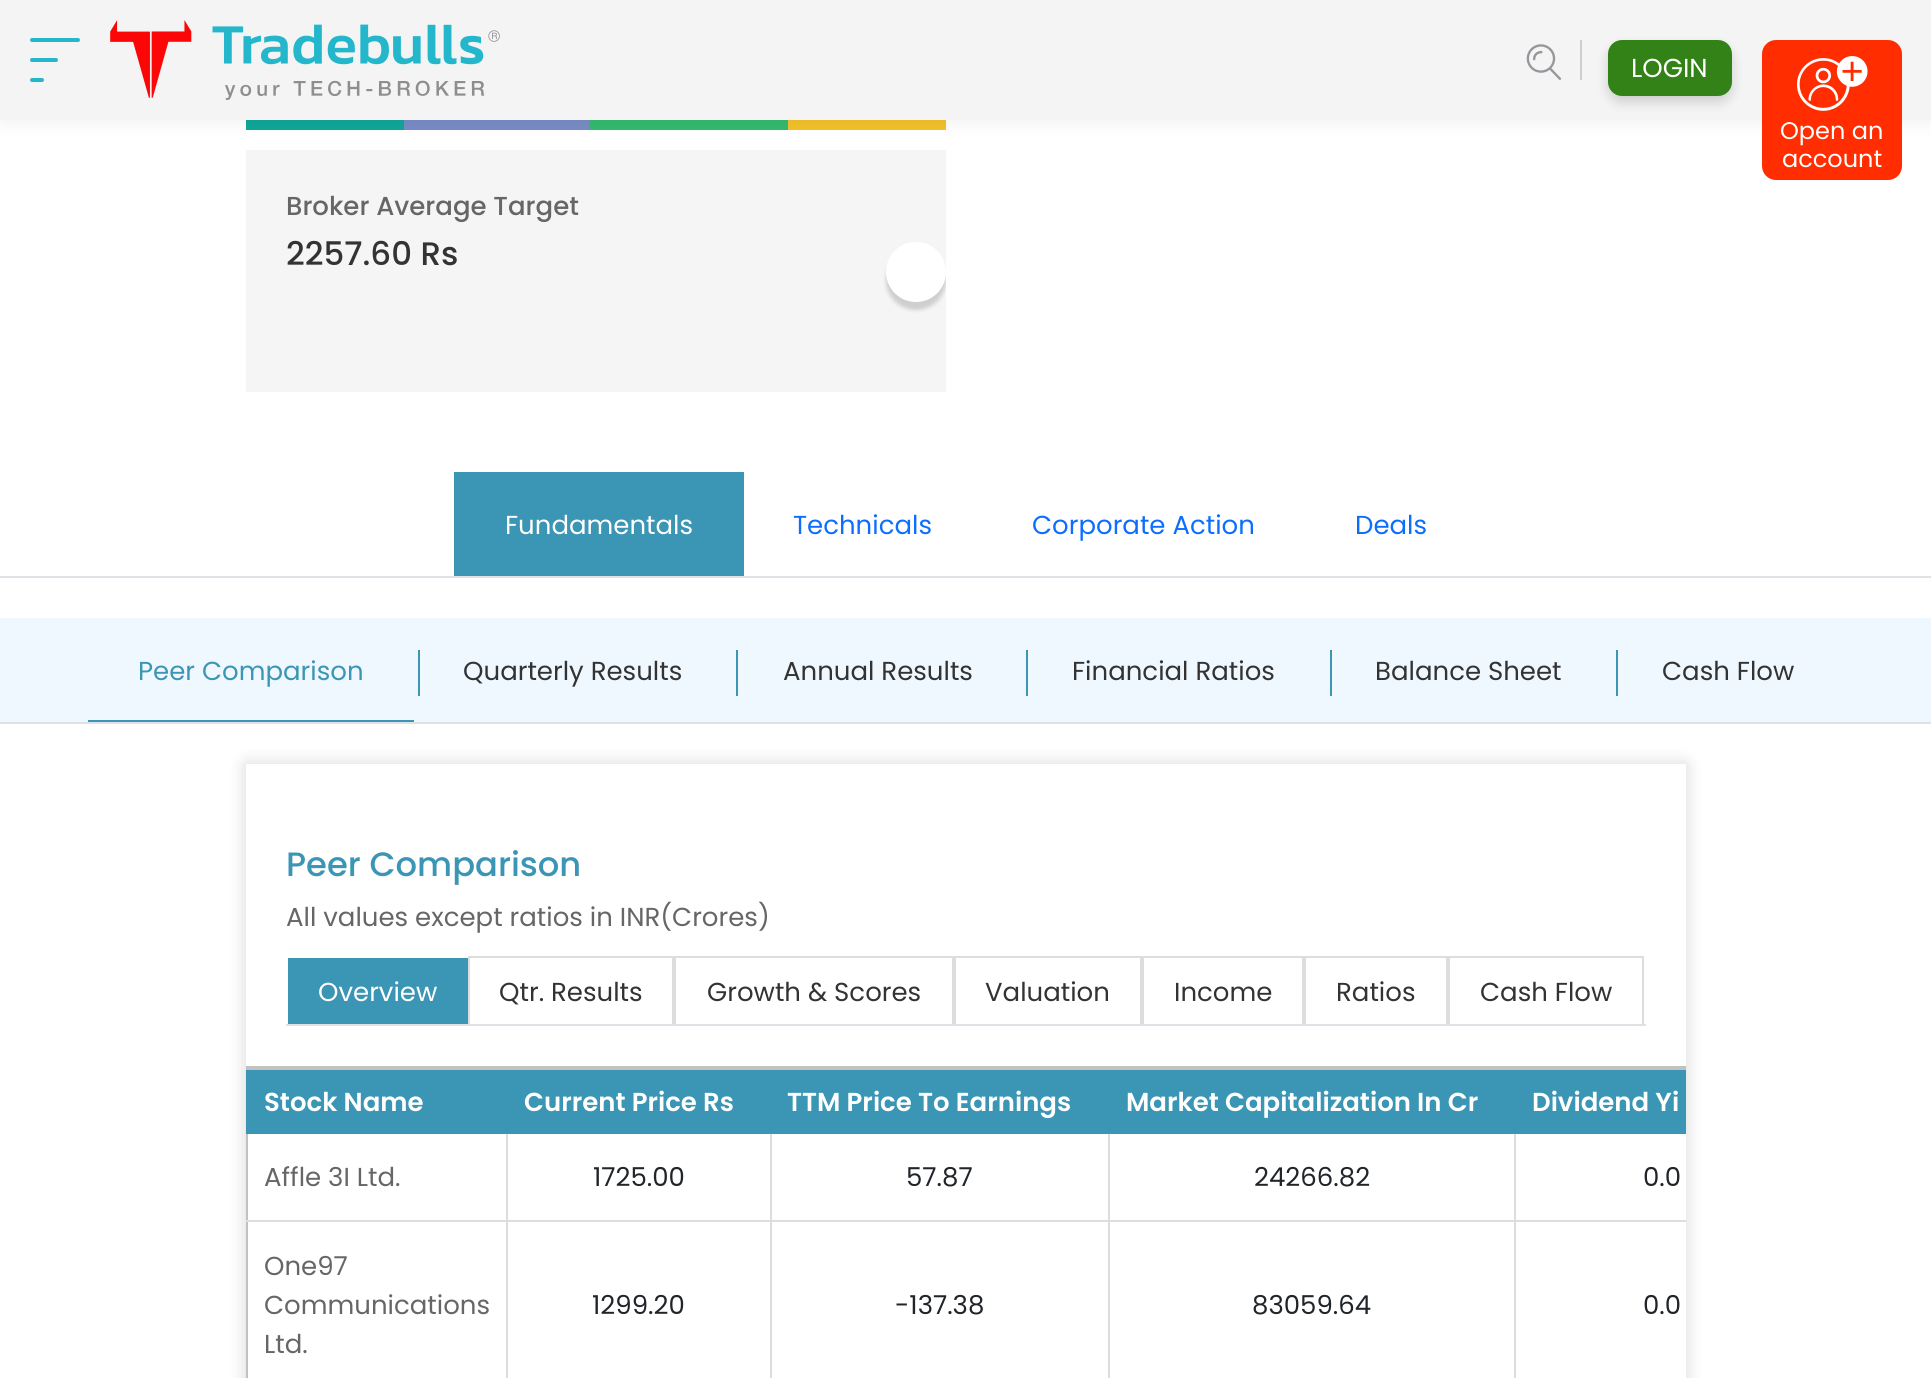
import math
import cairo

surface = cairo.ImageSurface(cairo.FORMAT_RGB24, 1931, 1378)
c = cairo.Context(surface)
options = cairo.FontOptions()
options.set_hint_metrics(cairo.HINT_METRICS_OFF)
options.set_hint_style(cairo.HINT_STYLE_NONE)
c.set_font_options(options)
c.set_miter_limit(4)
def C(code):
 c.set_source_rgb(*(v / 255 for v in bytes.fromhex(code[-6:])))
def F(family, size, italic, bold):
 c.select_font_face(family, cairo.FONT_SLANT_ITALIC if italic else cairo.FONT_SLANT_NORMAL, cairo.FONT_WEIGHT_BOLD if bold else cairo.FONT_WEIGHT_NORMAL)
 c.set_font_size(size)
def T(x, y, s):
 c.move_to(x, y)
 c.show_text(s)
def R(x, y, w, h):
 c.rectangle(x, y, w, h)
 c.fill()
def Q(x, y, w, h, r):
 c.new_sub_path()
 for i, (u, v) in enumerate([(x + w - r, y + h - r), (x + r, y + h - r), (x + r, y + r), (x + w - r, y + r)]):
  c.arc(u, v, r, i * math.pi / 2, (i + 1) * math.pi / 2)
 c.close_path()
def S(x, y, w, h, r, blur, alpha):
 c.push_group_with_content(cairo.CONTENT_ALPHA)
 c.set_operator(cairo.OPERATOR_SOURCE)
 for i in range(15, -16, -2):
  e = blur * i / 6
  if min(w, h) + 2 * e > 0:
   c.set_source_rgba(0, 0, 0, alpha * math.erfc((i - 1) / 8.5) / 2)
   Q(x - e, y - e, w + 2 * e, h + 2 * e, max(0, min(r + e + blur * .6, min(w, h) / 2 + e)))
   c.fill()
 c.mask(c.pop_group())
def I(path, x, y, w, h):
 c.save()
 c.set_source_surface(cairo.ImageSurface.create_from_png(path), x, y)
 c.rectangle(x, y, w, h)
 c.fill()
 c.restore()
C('ffffff')
c.paint()
C('0fa798')
R(246,120,158,10)
C('788bc4')
R(404,120,186,10)
C('32ba6e')
R(590,120,198,10)
C('f2c02b')
R(788,120,158,10)
C('f5f5f5')
R(246,150,700,242)
C('000000')
S(0,2,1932,120,0,10,.06)
C('f4f4f4')
R(0,0,1931,120)
C('24b7cc')
Q(30,38,50,4,2)
c.fill()
Q(30,58,28,4,2)
c.fill()
Q(30,78,14,4,2)
c.fill()
I('1.png',110,20,390,80)
I('2.png',1526,44,36,36)
C('cecece')
R(1580,40,2,40)
C('000000')
S(1608,46,124,56,14,6,.16)
C('338217')
Q(1608,40,124,56,14)
c.fill()
F('Poppins',26,0,0)
C('ffffff')
T(1631,77,'LOGIN')
C('ff2d00')
Q(1762,40,140,140,14)
c.fill()
I('3.png',1797,56,71,55)
F('Poppins',24,0,0)
C('ffffff')
T(1780,139,'Open an')
T(1782,167,'account')
F('Poppins Medium',26,0,0)
C('666666')
T(286,215,'Broker Average Target')
F('Poppins Medium',32.5,0,0)
C('333333')
T(286,265,'2257.60 Rs')
c.save()
c.rectangle(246,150,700,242)
c.clip()
C('000000')
S(886,250,60,60,30,2,.16)
c.restore()
C('ffffff')
c.arc(916,272,30,0,2 * math.pi)
c.fill()
C('dee2e6')
R(0,576,1931,2)
C('3b95b4')
R(454,472,290,104)
F('Poppins',26,0,0)
C('ffffff')
T(505,534,'Fundamentals')
C('0d6efd')
T(793,534,'Technicals')
T(1032,534,'Corporate Action')
T(1355,534,'Deals')
C('eff8ff')
R(0,618,1931,104)
C('dee2e6')
R(0,722,1931,2)
C('3b95b4')
T(138,680,'Peer Comparison')
R(418,650,2,46)
R(88,720,326,2)
C('333333')
T(463,680,'Quarterly Results')
C('3b95b4')
R(736,650,2,46)
C('333333')
T(783,680,'Annual Results')
C('3b95b4')
R(1026,650,2,46)
C('333333')
T(1072,680,'Financial Ratios')
C('3b95b4')
R(1330,650,2,46)
C('333333')
T(1375,680,'Balance Sheet')
C('3b95b4')
R(1616,650,2,46)
C('333333')
T(1662,680,'Cash Flow')
c.save()
c.set_fill_rule(cairo.FILL_RULE_EVEN_ODD)
c.new_path()
c.move_to(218,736)
c.line_to(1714,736)
c.line_to(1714,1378)
c.line_to(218,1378)
c.close_path()
c.move_to(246,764)
c.line_to(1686,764)
c.line_to(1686,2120)
c.line_to(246,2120)
c.close_path()
c.clip()
C('000000')
S(246,764,1440,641,0,9,.16)
c.restore()
F('Poppins Medium',33.75,0,0)
C('3b95b4')
T(286,876,'Peer Comparison')
F('Poppins',26,0,0)
C('666666')
T(286,926,'All values except ratios in INR(Crores)')
C('dee2e6')
R(286,1024,1360,2)
C('3b95b4')
R(288,958,180,66)
C('ffffff')
T(318,1001,'Overview')
c.save()
c.rectangle(286,956,1360,68)
c.clip()
c.rectangle(469,957,204,68)
C('dddddd')
c.stroke()
c.restore()
C('333333')
T(499,1001,'Qtr. Results')
c.save()
c.rectangle(286,956,1360,68)
c.clip()
c.rectangle(675,957,278,68)
C('dddddd')
c.stroke()
c.restore()
T(707,1001,'Growth & Scores')
c.save()
c.rectangle(286,956,1360,68)
c.clip()
c.rectangle(955,957,186,68)
C('dddddd')
c.stroke()
c.restore()
T(985,1001,'Valuation')
c.save()
c.rectangle(286,956,1360,68)
c.clip()
c.rectangle(1143,957,160,68)
C('dddddd')
c.stroke()
c.restore()
T(1174,1001,'Income')
c.save()
c.rectangle(286,956,1360,68)
c.clip()
c.rectangle(1305,957,142,68)
C('dddddd')
c.stroke()
c.restore()
T(1336,1001,'Ratios')
c.save()
c.rectangle(286,956,1360,68)
c.clip()
c.rectangle(1449,957,194,68)
C('dddddd')
c.stroke()
c.restore()
T(1480,1001,'Cash Flow')
C('c1c1c1')
R(246,1066,1440,4)
R(246,1068,2,310)
C('dddddd')
R(1514,1220,2,158)
R(1514,1220,172,2)
R(1514,1132,2,90)
R(1108,1220,2,158)
R(1108,1220,408,2)
R(1108,1132,2,90)
R(770,1220,2,158)
R(770,1220,340,2)
R(770,1132,2,90)
R(506,1220,2,158)
R(506,1220,266,2)
R(506,1132,2,90)
C('3b95b4')
R(246,1070,1440,64)
F('Poppins SemiBold',26,0,0)
C('ffffff')
T(264,1111,'Stock Name')
T(524,1111,'Current Price Rs')
T(787,1111,'TTM Price To Earnings')
T(1126,1111,'Market Capitalization In Cr')
T(1532,1111,'Dividend Yi')
C('dddddd')
R(246,1220,262,2)
F('Poppins',26,0,0)
C('666666')
T(264,1186,'Affle 3I Ltd.')
C('212529')
T(593,1186,'1725.00')
T(906,1186,'57.87')
T(1254,1186,'24266.82')
T(1643,1186,'0.0')
C('666666')
T(264,1275,'One97')
T(264,1314,'Communications')
T(264,1353,'Ltd.')
C('212529')
T(592,1314,'1299.20')
T(895,1314,'-137.38')
T(1252,1314,'83059.64')
T(1643,1314,'0.0')
surface.write_to_png('o.png')
